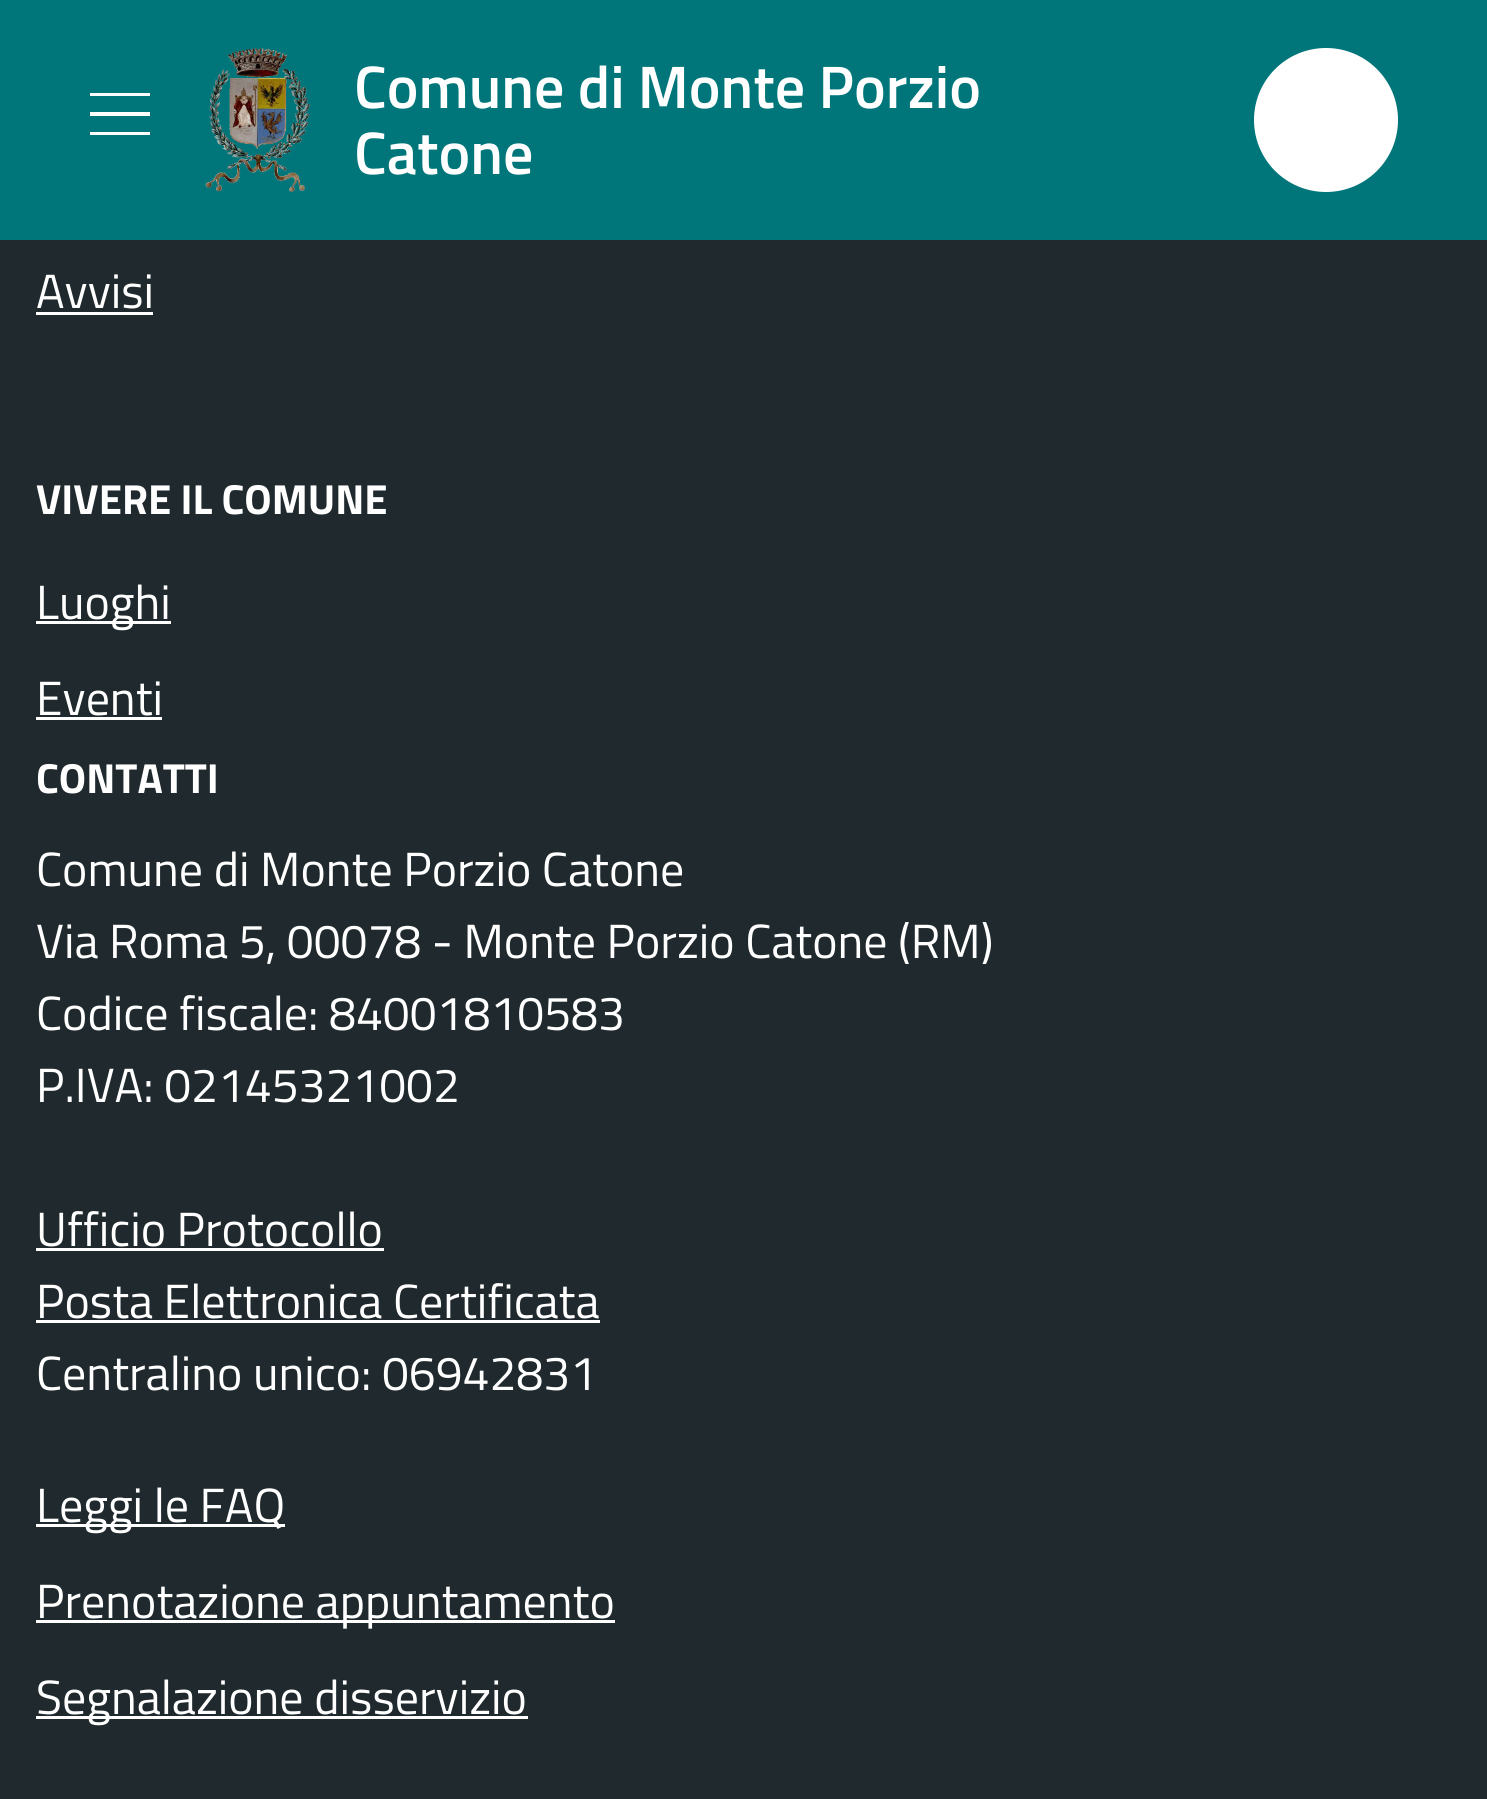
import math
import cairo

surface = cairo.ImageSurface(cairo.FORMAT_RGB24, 1487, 1799)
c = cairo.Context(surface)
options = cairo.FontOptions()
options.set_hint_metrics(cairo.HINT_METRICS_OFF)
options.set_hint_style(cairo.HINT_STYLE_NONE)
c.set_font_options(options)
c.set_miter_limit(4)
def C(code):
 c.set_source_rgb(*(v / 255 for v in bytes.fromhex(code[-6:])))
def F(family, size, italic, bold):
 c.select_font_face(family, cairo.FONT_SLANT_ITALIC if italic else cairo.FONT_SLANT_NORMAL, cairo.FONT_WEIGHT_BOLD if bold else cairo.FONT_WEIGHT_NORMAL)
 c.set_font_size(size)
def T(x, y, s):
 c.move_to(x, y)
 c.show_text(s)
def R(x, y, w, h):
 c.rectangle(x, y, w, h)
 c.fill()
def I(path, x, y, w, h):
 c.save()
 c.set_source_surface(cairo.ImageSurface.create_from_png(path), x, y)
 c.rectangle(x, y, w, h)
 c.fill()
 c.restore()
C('202a2e')
c.paint()
C('00767a')
R(0,0,1487,240)
C('ffffff')
c.new_path()
c.move_to(150,93)
c.line_to(150,96)
c.line_to(90,96)
c.line_to(90,93)
c.close_path()
c.move_to(90,116)
c.line_to(150,116)
c.line_to(150,112)
c.line_to(90,112)
c.close_path()
c.move_to(90,135)
c.line_to(150,135)
c.line_to(150,132)
c.line_to(90,132)
c.close_path()
c.fill()
I('1.png',205,48,105,144)
F('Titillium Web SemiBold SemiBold',60,0,0)
T(354,108,'Comune di Monte Porzio')
T(354,174,'Catone')
c.new_path()
c.arc(1326,120,72,0,2 * math.pi)
c.fill()
F('Titillium Web',48,0,0)
T(36,308,'Avvisi')
R(36,312,117,3)
F('Titillium Web',42,0,1)
T(36,514,'VIVERE IL COMUNE')
R(36,621,135,3)
F('Titillium Web',48,0,0)
T(36,619,'Luoghi')
T(36,715,'Eventi')
R(36,717,126,3)
F('Titillium Web',42,0,1)
T(36,793,'CONTATTI')
F('Titillium Web',48,0,0)
T(36,886,'Comune di Monte Porzio Catone')
T(36,958,'Via Roma 5, 00078 - Monte Porzio Catone (RM)')
T(36,1030,'Codice fiscale: 84001810583')
T(36,1102,'P.IVA: 02145321002')
T(36,1246,'Ufficio Protocollo')
R(36,1248,348,3)
T(36,1318,'Posta Elettronica Certificata')
R(36,1320,564,3)
T(36,1390,'Centralino unico: 06942831')
R(36,1524,249,3)
T(36,1522,'Leggi le FAQ')
R(36,1620,579,3)
T(36,1618,'Prenotazione appuntamento')
R(36,1716,492,3)
T(36,1714,'Segnalazione disservizio')
surface.write_to_png('o.png')
